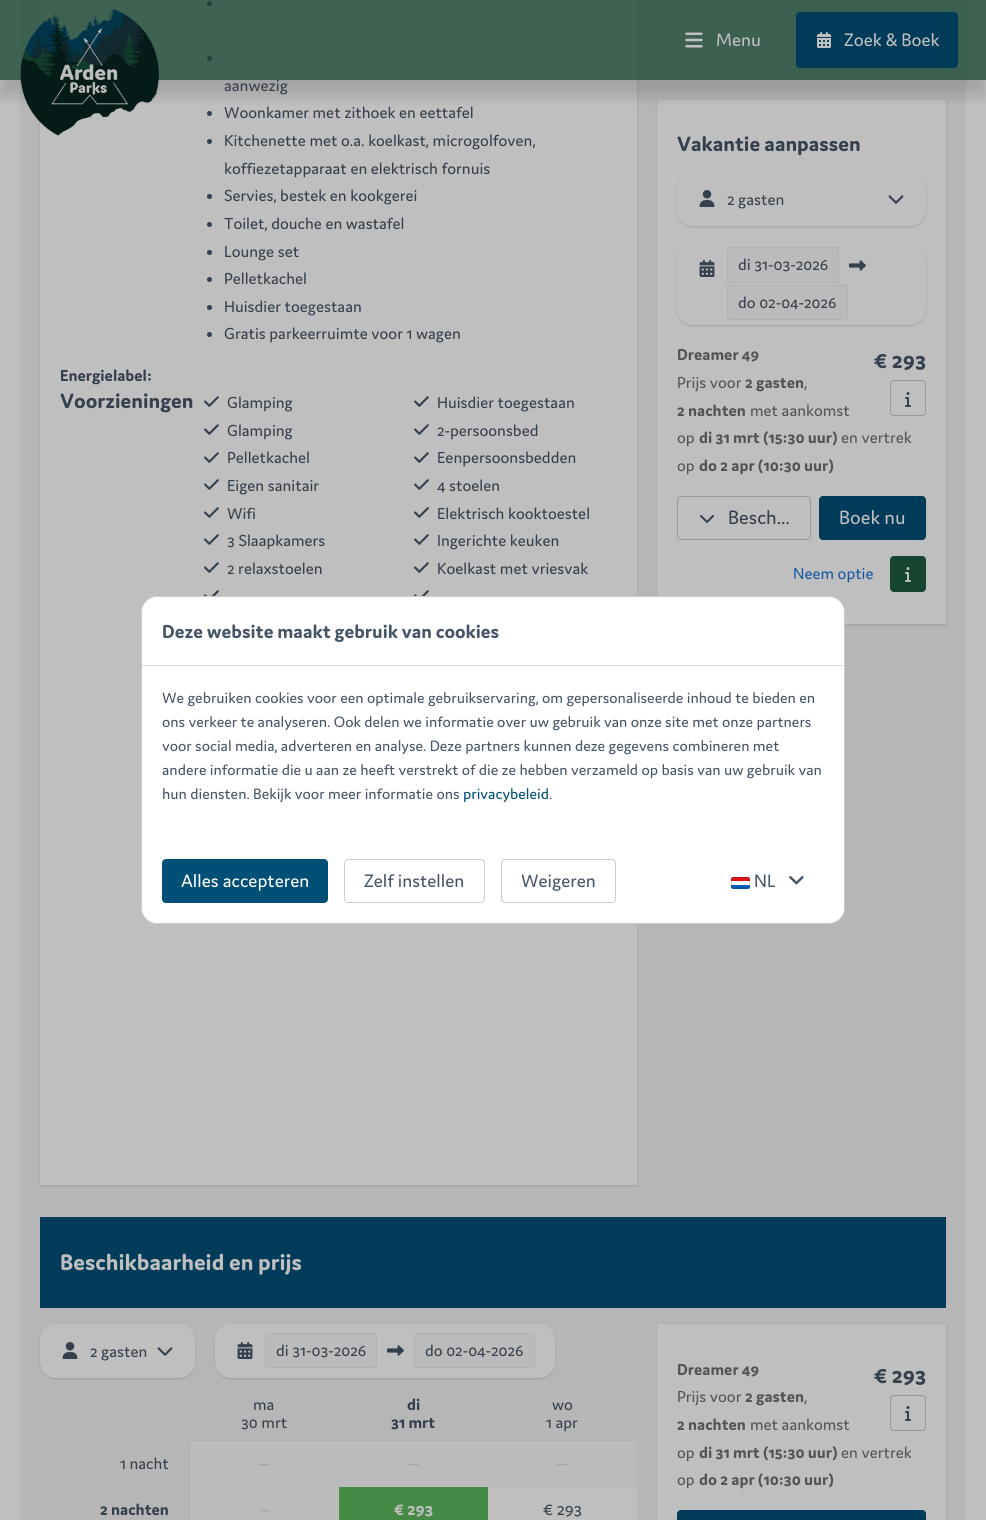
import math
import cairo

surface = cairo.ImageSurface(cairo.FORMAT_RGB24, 986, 1520)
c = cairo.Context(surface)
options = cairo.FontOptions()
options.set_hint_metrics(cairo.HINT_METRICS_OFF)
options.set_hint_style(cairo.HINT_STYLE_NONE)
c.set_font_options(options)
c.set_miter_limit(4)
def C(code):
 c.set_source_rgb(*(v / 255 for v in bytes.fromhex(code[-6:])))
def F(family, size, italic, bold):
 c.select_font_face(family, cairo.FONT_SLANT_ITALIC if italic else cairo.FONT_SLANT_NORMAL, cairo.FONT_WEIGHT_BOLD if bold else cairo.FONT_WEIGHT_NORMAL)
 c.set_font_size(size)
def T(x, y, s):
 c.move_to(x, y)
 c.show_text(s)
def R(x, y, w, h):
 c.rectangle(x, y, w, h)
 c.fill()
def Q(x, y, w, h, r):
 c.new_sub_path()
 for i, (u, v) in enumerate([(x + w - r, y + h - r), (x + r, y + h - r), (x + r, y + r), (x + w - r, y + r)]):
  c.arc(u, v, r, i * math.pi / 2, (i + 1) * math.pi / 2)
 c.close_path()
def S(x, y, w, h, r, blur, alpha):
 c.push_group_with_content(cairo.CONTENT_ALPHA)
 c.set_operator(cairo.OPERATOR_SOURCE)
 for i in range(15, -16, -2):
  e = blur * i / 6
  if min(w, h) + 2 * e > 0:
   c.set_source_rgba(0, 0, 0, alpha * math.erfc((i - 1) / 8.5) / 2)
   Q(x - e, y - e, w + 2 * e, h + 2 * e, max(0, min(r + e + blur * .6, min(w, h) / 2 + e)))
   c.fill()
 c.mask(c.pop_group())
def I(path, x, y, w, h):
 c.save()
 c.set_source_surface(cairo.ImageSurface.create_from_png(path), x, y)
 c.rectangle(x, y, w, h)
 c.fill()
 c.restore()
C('bfbfbf')
c.paint()
C('b6b6b6')
R(20,0,946,1520)
C('000000')
S(41,-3,595,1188,0,1,.1)
S(40,-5,597,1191,0,1.5,.1)
C('bfbfbf')
R(40,0,597,1185)
C('35404f')
c.arc(209.5,3.5,2.5,0,2 * math.pi)
c.fill()
c.arc(209.5,58.5,2.5,0,2 * math.pi)
c.fill()
c.arc(209.5,113.5,2.5,0,2 * math.pi)
c.fill()
C('000000')
S(658,102,287,522,0,1,.1)
S(657,101,289,524,0,1.5,.1)
C('bfbfbf')
R(657,100,289,524)
c.save()
c.rectangle(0,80,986,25)
c.clip()
C('000000')
S(0,16,986,80,0,8,.15)
c.restore()
c.set_source_rgba(0.082,0.267,0.184,0.75)
R(0,0,986,80)
I('1.png',20,8,139,128)
I('2.png',685,32,18,16)
F('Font',19.25,0,0)
C('bfbfbf')
T(716,46,'Menu')
C('003b59')
Q(796,12,162,56,4)
c.fill()
I('3.png',817,32,14,16)
C('bfbfbf')
T(844,46,'Zoek & Boek')
F('Font',17,0,0)
C('35404f')
T(224,91,'aanwezig')
T(224,118,'Woonkamer met zithoek en eettafel')
c.new_path()
c.arc(209.5,141.5,2.5,0,2 * math.pi)
c.fill()
T(224,146,'Kitchenette met o.a. koelkast, microgolfoven,')
T(224,174,'koffiezetapparaat en elektrisch fornuis')
c.new_path()
c.arc(209.5,196.5,2.5,0,2 * math.pi)
c.fill()
T(224,201,'Servies, bestek en kookgerei')
c.new_path()
c.arc(209.5,224.5,2.5,0,2 * math.pi)
c.fill()
T(224,229,'Toilet, douche en wastafel')
c.new_path()
c.arc(209.5,252.5,2.5,0,2 * math.pi)
c.fill()
T(224,257,'Lounge set')
c.new_path()
c.arc(209.5,279.5,2.5,0,2 * math.pi)
c.fill()
T(224,284,'Pelletkachel')
c.new_path()
c.arc(209.5,307.5,2.5,0,2 * math.pi)
c.fill()
T(224,312,'Huisdier toegestaan')
c.new_path()
c.arc(209.5,334.5,2.5,0,2 * math.pi)
c.fill()
T(224,339,'Gratis parkeerruimte voor 1 wagen')
F('Font SemiBold',17,0,0)
T(60,381,'Energielabel:')
F('Font SemiBold',22,0,0)
T(60,408,'Voorzieningen')
I('4.png',204,396,15,11)
F('Font',17,0,0)
T(227,408,'Glamping')
I('4.png',204,424,15,11)
T(227,436,'Glamping')
I('4.png',204,452,15,11)
T(227,463,'Pelletkachel')
I('4.png',204,479,15,11)
T(227,491,'Eigen sanitair')
I('4.png',204,507,15,11)
T(227,519,'Wifi')
I('4.png',204,534,15,11)
T(227,546,'3 Slaapkamers')
I('4.png',204,562,15,11)
T(227,574,'2 relaxstoelen')
I('5.png',204,590,15,6)
I('4.png',414,396,15,11)
T(437,408,'Huisdier toegestaan')
I('4.png',414,424,15,11)
T(437,436,'2-persoonsbed')
I('4.png',414,452,15,11)
T(437,463,'Eenpersoonsbedden')
I('4.png',414,479,15,11)
T(437,491,'4 stoelen')
I('4.png',414,507,15,11)
T(437,519,'Elektrisch kooktoestel')
I('4.png',414,534,15,11)
T(437,546,'Ingerichte keuken')
I('4.png',414,562,15,11)
T(437,574,'Koelkast met vriesvak')
I('5.png',414,590,15,6)
F('Font SemiBold',22,0,0)
T(677,151,'Vakantie aanpassen')
C('000000')
S(677,173,249,54,16,1,.15)
C('bfbfbf')
Q(677,172,249,54,16)
c.fill()
I('6.png',699,190,16,17)
F('Font',17,0,0)
C('35404f')
T(727,205,'2 gasten')
I('7.png',888,195,16,9)
C('000000')
S(677,243,249,83,16,1,.15)
C('bfbfbf')
Q(677,242,249,83,16)
c.fill()
I('8.png',699,260,16,17)
C('bbbbbb')
Q(727.5,247.5,111,35,2.5)
c.fill_preserve()
C('b1b1b1')
c.set_line_width(1)
c.stroke()
C('35404f')
T(738,270,'di 31-03-2026')
I('9.png',849,260,17,11)
C('bbbbbb')
Q(727.5,285.5,120,34,2.5)
c.fill_preserve()
C('b1b1b1')
c.stroke()
C('35404f')
T(738,308,'do 02-04-2026')
F('Font SemiBold',17,0,0)
C('545454')
T(677,360,'Dreamer 49')
F('Font SemiBold',24,0,0)
C('35404f')
T(874,368,'€ 293')
Q(890.5,380.5,35,35,3.5)
C('96999e')
c.stroke()
I('10.png',905,392,6,15)
F('Font',17,0,0)
C('545454')
T(677,388,'Prijs voor')
F('Font SemiBold',17,0,0)
T(745,388,'2 gasten')
F('Font',17,0,0)
T(804,388,',')
F('Font SemiBold',17,0,0)
T(677,416,'2 nachten')
F('Font',17,0,0)
T(750,416,'met aankomst')
T(677,443,'op')
F('Font SemiBold',17,0,0)
T(699,443,'di 31 mrt (15:30 uur)')
F('Font',17,0,0)
T(841,443,'en vertrek')
T(677,471,'op')
F('Font SemiBold',17,0,0)
T(699,471,'do 2 apr (10:30 uur)')
Q(677.5,496.5,133,43,3.5)
C('96999e')
c.stroke()
I('11.png',700,515,14,8)
F('Font',20.5,0,0)
C('35404f')
T(728,524,'Besch…')
C('003b59')
Q(819,496,107,44,4)
c.fill()
C('bfbfbf')
T(839,524,'Boek nu')
F('Font',17,0,0)
C('1559a3')
T(793,579,'Neem optie')
C('15442f')
Q(890,556,36,36,4)
c.fill()
I('12.png',905,567,6,15)
C('003b59')
R(40,1217,906,91)
F('Font SemiBold',24,0,0)
C('bfbfbf')
T(60,1270,'Beschikbaarheid en prijs')
C('000000')
S(40,1325,155,54,16,1,.15)
C('bfbfbf')
Q(40,1324,155,54,16)
c.fill()
I('6.png',62,1342,16,17)
F('Font',17,0,0)
C('35404f')
T(90,1357,'2 gasten')
I('7.png',157,1347,16,9)
C('000000')
S(215,1325,340,54,16,1,.15)
C('bfbfbf')
Q(215,1324,340,54,16)
c.fill()
I('8.png',237,1342,16,17)
C('bbbbbb')
Q(265.5,1333.5,111,34,2.5)
c.fill_preserve()
C('b1b1b1')
c.stroke()
C('35404f')
T(276,1356,'di 31-03-2026')
I('9.png',387,1345,17,11)
C('bbbbbb')
Q(414.5,1333.5,120,34,2.5)
c.fill_preserve()
C('b1b1b1')
c.stroke()
C('35404f')
T(425,1356,'do 02-04-2026')
T(253,1410,'ma')
T(241,1428,'30 mrt')
F('Font SemiBold',17,0,0)
T(407,1410,'di')
T(391,1428,'31 mrt')
F('Font',17,0,0)
T(552,1410,'wo')
T(546,1428,'1 apr')
T(120,1469,'1 nacht')
C('b3b3b3')
R(189,1440,448,1)
R(189,1486,1,34)
R(189,1440,1,47)
C('bbbbbb')
R(190,1441,447,46)
F('Font',18,0,0)
C('a6a6a6')
T(258,1469,'—')
T(407,1469,'—')
T(556,1469,'—')
F('Font SemiBold',17,0,0)
C('35404f')
T(100,1515,'2 nachten')
C('bbbbbb')
R(190,1487,149,33)
F('Font',18,0,0)
C('a6a6a6')
T(258,1515,'—')
C('458a45')
R(339,1487,149,33)
F('Font SemiBold',18,0,0)
C('bfbfbf')
T(394,1515,'€ 293')
R(488,1487,149,33)
F('Font',18,0,0)
C('35404f')
T(543,1515,'€ 293')
C('000000')
S(657,1325,289,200,0,1.5,.1)
C('bfbfbf')
R(657,1324,289,196)
F('Font SemiBold',17,0,0)
C('545454')
T(677,1375,'Dreamer 49')
F('Font SemiBold',24,0,0)
C('35404f')
T(874,1383,'€ 293')
Q(890.5,1395.5,35,35,3.5)
C('96999e')
c.stroke()
I('10.png',905,1406,6,15)
F('Font',17,0,0)
C('545454')
T(677,1402,'Prijs voor')
F('Font SemiBold',17,0,0)
T(745,1402,'2 gasten')
F('Font',17,0,0)
T(804,1402,',')
F('Font SemiBold',17,0,0)
T(677,1430,'2 nachten')
F('Font',17,0,0)
T(750,1430,'met aankomst')
T(677,1458,'op')
F('Font SemiBold',17,0,0)
T(699,1458,'di 31 mrt (15:30 uur)')
F('Font',17,0,0)
T(841,1458,'en vertrek')
T(677,1485,'op')
F('Font SemiBold',17,0,0)
T(699,1485,'do 2 apr (10:30 uur)')
C('003b59')
Q(677,1510,249,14,4)
c.fill()
C('ffffff')
Q(141.5,596.5,703,327,15.5)
c.fill_preserve()
C('c8ccd2')
c.stroke()
C('dadde1')
R(142,665,702,1)
F('Font SemiBold',20,0,0)
C('475569')
T(162,638,'Deze website maakt gebruik van cookies')
F('Font',16,0,0)
T(162,703,'We gebruiken cookies voor een optimale gebruikservaring, om gepersonaliseerde inhoud te bieden en')
T(162,727,'ons verkeer te analyseren. Ook delen we informatie over uw gebruik van onze site met onze partners')
T(162,751,'voor social media, adverteren en analyse. Deze partners kunnen deze gegevens combineren met')
T(162,775,'andere informatie die u aan ze heeft verstrekt of die ze hebben verzameld op basis van uw gebruik van')
T(162,799,'hun diensten. Bekijk voor meer informatie ons')
C('004f76')
T(463,799,'privacybeleid')
C('475569')
T(549,799,'.')
C('004f76')
Q(162,859,166,44,4)
c.fill()
F('Font',19.25,0,0)
C('ffffff')
T(181,887,'Alles accepteren')
Q(344.5,859.5,140,43,3.5)
C('c8ccd2')
c.stroke()
C('475569')
T(364,887,'Zelf instellen')
Q(501.5,859.5,114,43,3.5)
C('c8ccd2')
c.stroke()
C('475569')
T(521,887,'Weigeren')
I('13.png',731,877,19,12)
T(754,887,'NL')
I('14.png',789,876,15,9)
surface.write_to_png('o.png')
